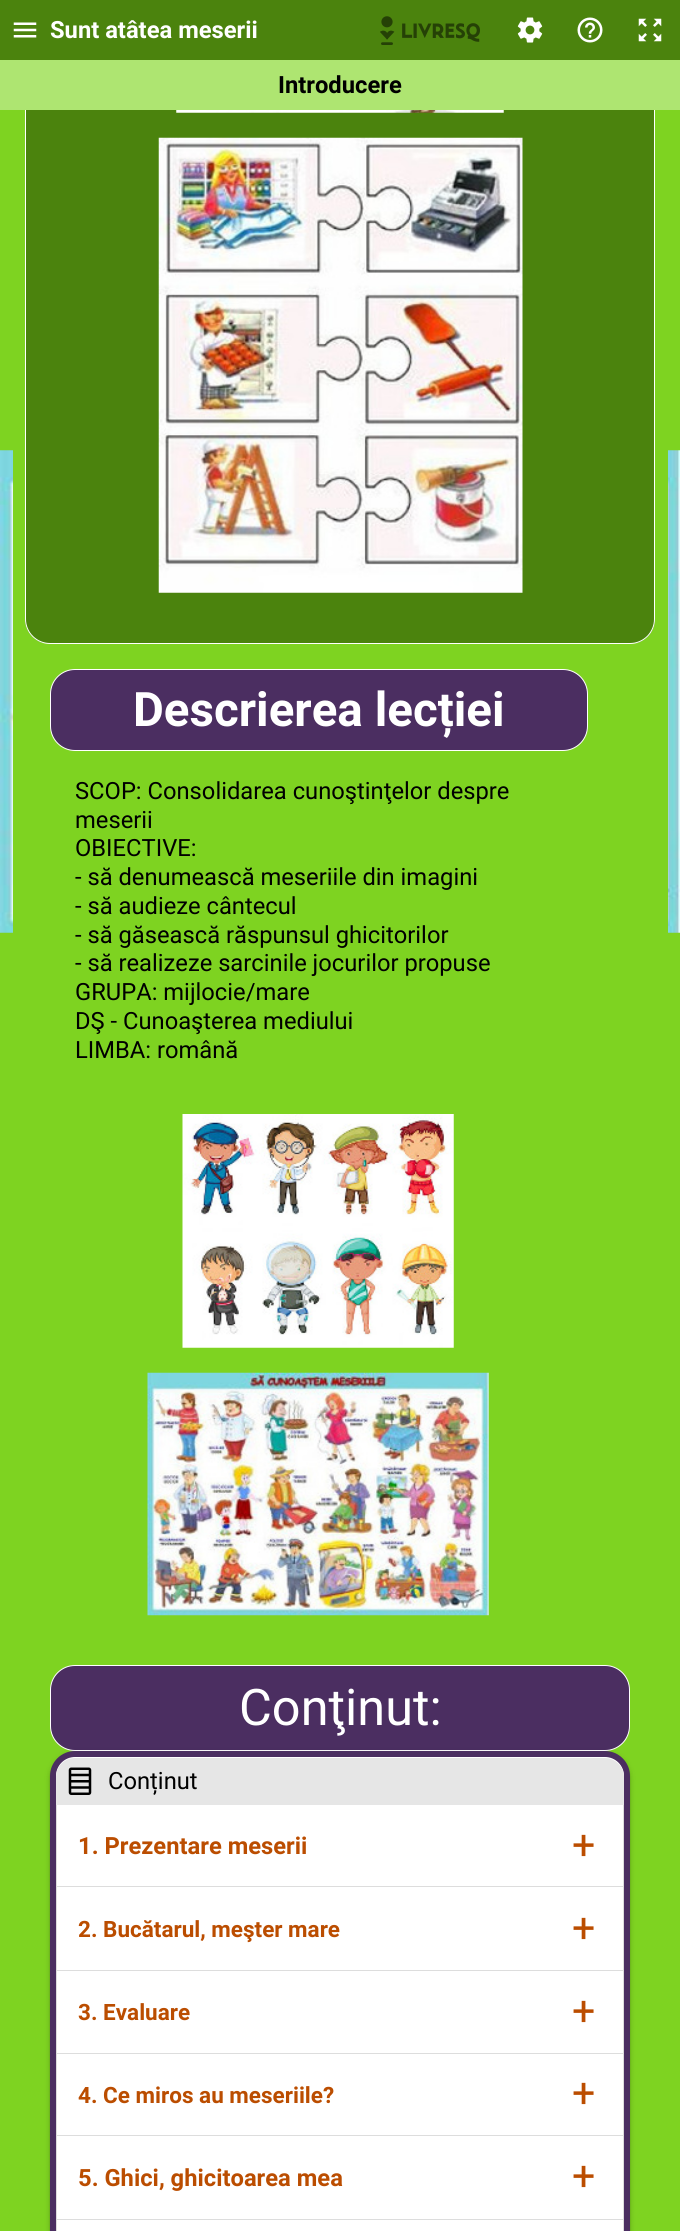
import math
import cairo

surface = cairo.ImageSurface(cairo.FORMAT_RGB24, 680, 2231)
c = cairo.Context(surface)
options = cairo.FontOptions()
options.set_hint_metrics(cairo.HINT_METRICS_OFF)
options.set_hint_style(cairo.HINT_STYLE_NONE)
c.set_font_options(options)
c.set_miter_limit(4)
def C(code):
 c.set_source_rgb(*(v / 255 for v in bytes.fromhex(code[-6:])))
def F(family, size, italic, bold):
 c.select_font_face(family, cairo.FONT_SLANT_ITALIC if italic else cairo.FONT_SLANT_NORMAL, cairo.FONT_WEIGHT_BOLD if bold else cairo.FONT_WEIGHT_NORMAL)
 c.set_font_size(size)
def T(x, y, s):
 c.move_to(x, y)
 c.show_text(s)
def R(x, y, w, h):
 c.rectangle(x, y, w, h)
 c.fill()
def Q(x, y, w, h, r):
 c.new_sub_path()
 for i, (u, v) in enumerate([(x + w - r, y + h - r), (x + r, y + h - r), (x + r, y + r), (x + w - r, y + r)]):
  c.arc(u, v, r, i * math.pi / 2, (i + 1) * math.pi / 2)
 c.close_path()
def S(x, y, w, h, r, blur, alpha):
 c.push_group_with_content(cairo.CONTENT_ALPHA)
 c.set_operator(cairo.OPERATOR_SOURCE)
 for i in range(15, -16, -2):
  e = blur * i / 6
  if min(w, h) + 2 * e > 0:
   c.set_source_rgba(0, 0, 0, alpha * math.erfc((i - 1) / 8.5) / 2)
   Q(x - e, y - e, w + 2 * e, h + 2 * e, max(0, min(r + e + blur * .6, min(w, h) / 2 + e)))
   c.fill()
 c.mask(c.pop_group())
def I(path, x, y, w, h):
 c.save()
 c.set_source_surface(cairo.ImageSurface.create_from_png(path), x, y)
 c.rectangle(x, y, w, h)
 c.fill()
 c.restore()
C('7ed321')
c.paint()
I('1.png',0,450,680,483)
C('7ed321')
R(13,450,655,483)
c.save()
Q(25,-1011,630,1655,25)
c.clip()
C('4b830d')
R(25,110,630,533)
c.restore()
Q(25.5,-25.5,629,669,24.5)
C('ffffff')
c.set_line_width(1)
c.stroke()
C('4b830d')
R(0,0,680,60)
I('2.png',13,22,24,16)
F('Roboto',23.75,0,1)
C('ffffff')
T(50,38,'Sunt atâtea meserii')
I('3.png',380,16,100,29)
I('4.png',517,17,26,26)
I('5.png',577,17,26,26)
I('6.png',638,18,24,24)
C('aee571')
R(0,60,680,50)
C('000000')
T(278,93,'Introducere')
I('7.png',176,110,328,3)
I('8.png',158,137,365,456)
C('4b2e61')
Q(50.5,669.5,537,81,24.5)
c.fill_preserve()
C('ffffff')
c.stroke()
F('Roboto',47.5,0,1)
T(133,726,'Descrierea lecției')
F('Roboto',23.75,0,0)
C('000000')
T(75,799,'SCOP: Consolidarea cunoştinţelor despre')
T(75,828,'meserii')
T(75,856,'OBIECTIVE:')
T(75,885,'- să denumească meseriile din imagini')
T(75,914,'- să audieze cântecul')
T(75,943,'- să găsească răspunsul ghicitorilor')
T(75,971,'- să realizeze sarcinile jocurilor propuse')
T(75,1000,'GRUPA: mijlocie/mare')
T(75,1029,'DŞ - Cunoaşterea mediului')
T(75,1058,'LIMBA: română')
I('9.png',182,1114,272,234)
I('10.png',147,1372,342,244)
C('4b2e61')
Q(50.5,1665.5,579,85,24.5)
c.fill_preserve()
C('ffffff')
c.stroke()
F('Roboto',50.5,0,0)
T(239,1725,'Conţinut:')
C('000000')
S(50,1754,580,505,25,1,.14)
S(50,1753,580,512,25,3,.2)
C('ffffff')
Q(53,1754,574,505,22)
c.fill_preserve()
C('4b2e61')
c.set_line_width(6)
c.stroke()
C('f1f1f1')
c.new_path()
c.move_to(75,1758)
c.line_to(605,1758)
c.curve_to(615.5,1758,624,1766.5,624,1777)
c.line_to(624,1805)
c.line_to(56,1805)
c.line_to(56,1777)
c.curve_to(56,1766.5,64.5,1758,75,1758)
c.close_path()
c.fill()
c.set_source_rgba(0,0,0,0.05)
c.new_path()
c.move_to(75,1758)
c.curve_to(71,1758,67,1759,63,1762)
c.curve_to(55,1769,56,1777,56,1786)
c.line_to(56,1805)
c.line_to(624,1805)
c.line_to(624,1786)
c.curve_to(624,1782,625,1776,623,1772)
c.curve_to(621,1764,613,1758,605,1758)
c.close_path()
c.fill()
I('11.png',68,1767,24,28)
F('Roboto',23.75,0,0)
C('000000')
T(108,1789,'Conținut')
C('dddddd')
R(623,1805,1,426)
R(56,1886,568,1)
R(56,1805,1,83)
F('Roboto',23.75,0,1)
C('bb4d00')
T(78,1854,'1. Prezentare meserii')
F('Roboto',41,0,0)
T(572,1859,'+')
C('dddddd')
R(56,1970,568,1)
R(56,1888,1,83)
F('Roboto',22.5,0,1)
C('bb4d00')
T(78,1937,'2. Bucătarul, meşter mare')
F('Roboto',41,0,0)
T(572,1942,'+')
C('dddddd')
R(56,2053,568,1)
R(56,1971,1,83)
F('Roboto',22.5,0,1)
C('bb4d00')
T(78,2020,'3. Evaluare')
F('Roboto',41,0,0)
T(572,2025,'+')
C('dddddd')
R(56,2135,568,1)
R(56,2054,1,82)
F('Roboto',22.5,0,1)
C('bb4d00')
T(78,2103,'4. Ce miros au meseriile?')
F('Roboto',41,0,0)
T(572,2107,'+')
C('dddddd')
R(56,2219,568,1)
R(56,2136,1,95)
F('Roboto',23.75,0,1)
C('bb4d00')
T(78,2186,'5. Ghici, ghicitoarea mea')
F('Roboto',41,0,0)
T(572,2190,'+')
surface.write_to_png('o.png')
